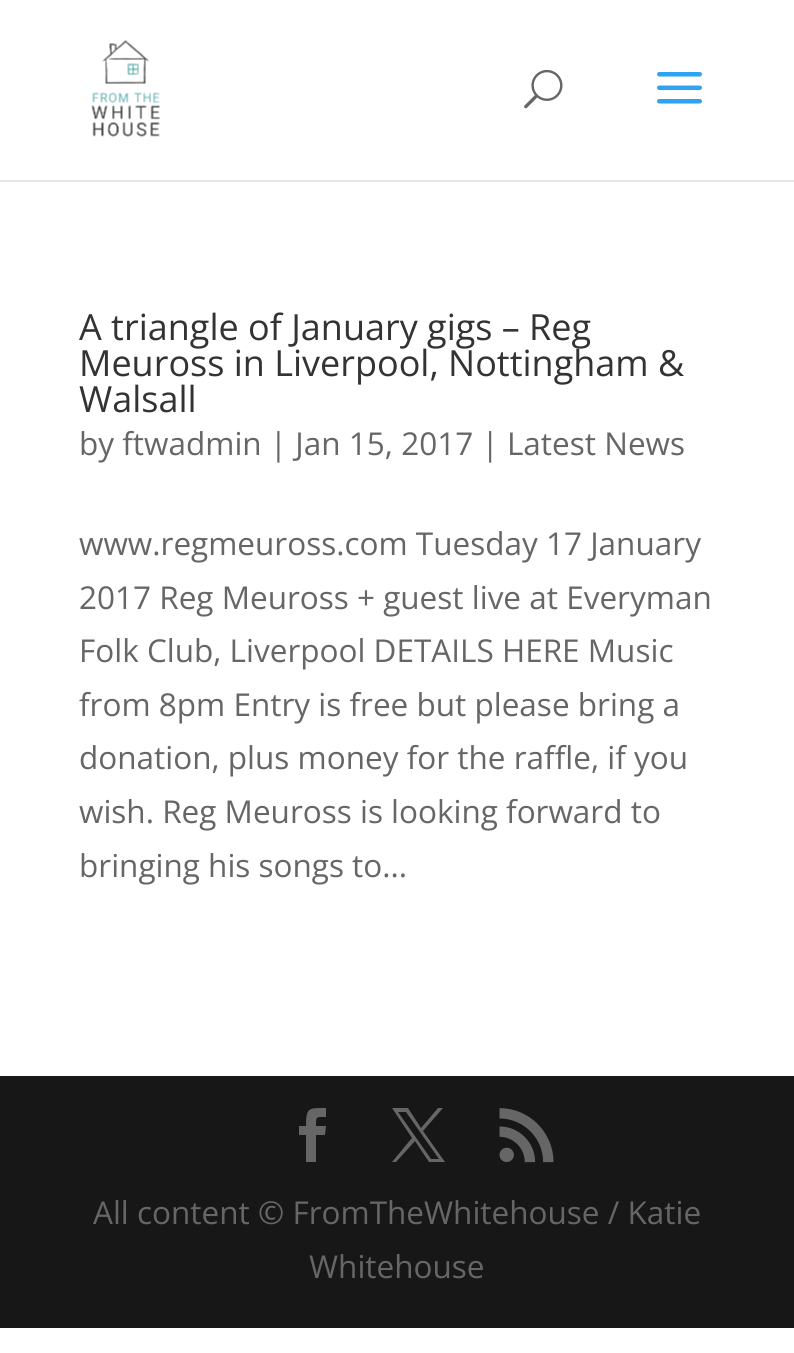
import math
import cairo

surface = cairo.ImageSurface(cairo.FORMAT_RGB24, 794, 1353)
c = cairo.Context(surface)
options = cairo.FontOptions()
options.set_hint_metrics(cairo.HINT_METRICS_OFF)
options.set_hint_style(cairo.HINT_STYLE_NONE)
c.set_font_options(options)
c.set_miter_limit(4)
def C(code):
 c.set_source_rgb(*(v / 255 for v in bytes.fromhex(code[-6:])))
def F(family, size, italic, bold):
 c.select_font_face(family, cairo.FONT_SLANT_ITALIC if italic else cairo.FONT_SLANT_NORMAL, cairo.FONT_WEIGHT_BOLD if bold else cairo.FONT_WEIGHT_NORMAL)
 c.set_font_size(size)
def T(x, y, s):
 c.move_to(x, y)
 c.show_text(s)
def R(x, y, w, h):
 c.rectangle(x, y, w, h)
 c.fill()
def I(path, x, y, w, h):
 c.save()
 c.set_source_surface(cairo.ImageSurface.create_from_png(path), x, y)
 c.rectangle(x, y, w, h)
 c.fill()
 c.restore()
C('ffffff')
c.paint()
C('e6e6e6')
R(0,180,794,2)
I('1.png',91,40,69,97)
I('2.png',524,69,39,40)
I('3.png',657,72,45,32)
F('Open Sans',36,0,0)
C('333333')
T(79,340,'A triangle of January gigs – Reg')
T(79,376,'Meuross in Liverpool, Nottingham &')
T(79,412,'Walsall')
F('Open Sans',31.5,0,0)
C('666666')
T(79,455,'by ftwadmin | Jan 15, 2017 | Latest News')
T(79,555,'www.regmeuross.com Tuesday 17 January')
T(79,609,'2017 Reg Meuross + guest live at Everyman')
T(79,662,'Folk Club, Liverpool DETAILS HERE Music')
T(79,716,'from 8pm Entry is free but please bring a')
T(79,769,'donation, plus money for the raffle, if you')
T(79,823,'wish. Reg Meuross is looking forward to')
T(79,877,'bringing his songs to...')
C('171717')
R(0,1076,794,252)
C('666666')
c.new_path()
c.move_to(306,1162)
c.line_to(316,1162)
c.line_to(316,1135)
c.line_to(325,1135)
c.line_to(326,1126)
c.line_to(316,1126)
c.curve_to(316,1116,316,1117,326,1117)
c.line_to(326,1108)
c.curve_to(309,1108,306,1107,306,1126)
c.line_to(299,1126)
c.line_to(299,1135)
c.line_to(306,1135)
c.close_path()
c.fill()
c.new_path()
c.move_to(392,1108)
c.line_to(412,1138)
c.line_to(392,1162)
c.line_to(396,1162)
c.line_to(415,1141)
c.line_to(429,1162)
c.line_to(445,1162)
c.line_to(423,1131)
c.line_to(443,1108)
c.line_to(438,1108)
c.line_to(421,1128)
c.line_to(408,1108)
c.close_path()
c.move_to(398,1112)
c.line_to(406,1112)
c.line_to(439,1159)
c.line_to(431,1159)
c.close_path()
c.fill()
I('4.png',499,1108,55,55)
T(93,1224,'All content © FromTheWhitehouse / Katie')
T(309,1278,'Whitehouse')
surface.write_to_png('o.png')
